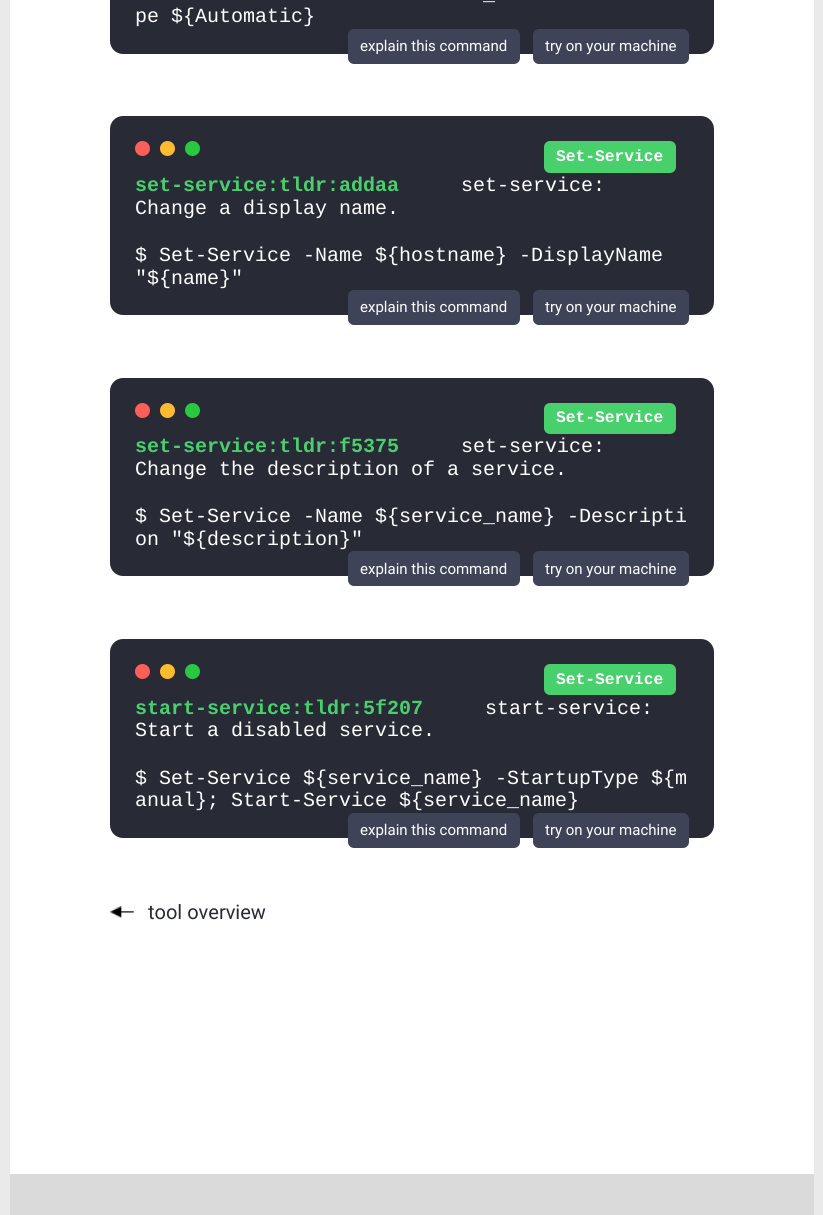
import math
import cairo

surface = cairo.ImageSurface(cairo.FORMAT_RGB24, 823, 1215)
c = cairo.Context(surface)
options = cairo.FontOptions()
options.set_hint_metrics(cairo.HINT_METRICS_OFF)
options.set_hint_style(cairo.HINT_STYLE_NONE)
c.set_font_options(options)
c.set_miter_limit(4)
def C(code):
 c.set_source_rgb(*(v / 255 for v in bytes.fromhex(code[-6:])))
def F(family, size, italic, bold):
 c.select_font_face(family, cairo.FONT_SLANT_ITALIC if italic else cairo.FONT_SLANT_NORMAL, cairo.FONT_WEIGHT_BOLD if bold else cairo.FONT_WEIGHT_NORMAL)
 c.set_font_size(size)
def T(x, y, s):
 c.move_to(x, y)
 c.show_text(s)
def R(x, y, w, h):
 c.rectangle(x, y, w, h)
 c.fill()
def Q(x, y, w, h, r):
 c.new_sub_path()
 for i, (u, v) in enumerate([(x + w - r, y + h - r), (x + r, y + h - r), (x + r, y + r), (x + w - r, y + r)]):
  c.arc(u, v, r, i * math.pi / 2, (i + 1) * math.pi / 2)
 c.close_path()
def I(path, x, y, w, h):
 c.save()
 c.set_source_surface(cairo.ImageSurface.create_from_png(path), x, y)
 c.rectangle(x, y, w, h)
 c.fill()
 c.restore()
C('eaeaea')
c.paint()
C('ffffff')
R(10,0,804,1174)
C('282a36')
Q(110,-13,604,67,13)
c.fill()
F('Liberation Mono',20,0,0)
C('ffffff')
T(483,0,'_')
T(135,22,'pe ${Automatic}')
C('3f4358')
Q(348,29,172,35,6)
c.fill()
F('Roboto',15,0,0)
C('ffffff')
T(360,51,'explain this command')
C('3f4358')
Q(533,29,156,35,6)
c.fill()
C('ffffff')
T(545,51,'try on your machine')
C('282a36')
Q(110,116,604,199,13)
c.fill()
C('ff5f57')
c.arc(142.5,148.5,7.5,0,2 * math.pi)
c.fill()
C('febc2e')
c.arc(167.5,148.5,7.5,0,2 * math.pi)
c.fill()
C('28c840')
c.arc(192.5,148.5,7.5,0,2 * math.pi)
c.fill()
C('48d06d')
Q(544,141,132,32,6)
c.fill()
F('Liberation Mono',16.25,0,1)
C('ffffff')
T(556,161,'Set-Service')
F('Liberation Mono',20,0,1)
C('48d06d')
T(135,191,'set-service:tldr:addaa')
F('Liberation Mono',20,0,0)
C('ffffff')
T(461,191,'set-service:')
T(135,214,'Change a display name.')
T(135,261,'$ Set-Service -Name ${hostname} -DisplayName')
T(135,284,'"${name}"')
C('3f4358')
Q(348,290,172,35,6)
c.fill()
F('Roboto',15,0,0)
C('ffffff')
T(360,312,'explain this command')
C('3f4358')
Q(533,290,156,35,6)
c.fill()
C('ffffff')
T(545,312,'try on your machine')
C('282a36')
Q(110,378,604,198,13)
c.fill()
C('ff5f57')
c.arc(142.5,410.5,7.5,0,2 * math.pi)
c.fill()
C('febc2e')
c.arc(167.5,410.5,7.5,0,2 * math.pi)
c.fill()
C('28c840')
c.arc(192.5,410.5,7.5,0,2 * math.pi)
c.fill()
C('48d06d')
Q(544,403,132,31,6)
c.fill()
F('Liberation Mono',16.25,0,1)
C('ffffff')
T(556,422,'Set-Service')
F('Liberation Mono',20,0,1)
C('48d06d')
T(135,452,'set-service:tldr:f5375')
F('Liberation Mono',20,0,0)
C('ffffff')
T(461,452,'set-service:')
T(135,475,'Change the description of a service.')
T(135,522,'$ Set-Service -Name ${service_name} -Descripti')
T(135,545,'on "${description}"')
C('3f4358')
Q(348,551,172,35,6)
c.fill()
F('Roboto',15,0,0)
C('ffffff')
T(360,574,'explain this command')
C('3f4358')
Q(533,551,156,35,6)
c.fill()
C('ffffff')
T(545,574,'try on your machine')
C('282a36')
Q(110,639,604,199,13)
c.fill()
C('ff5f57')
c.arc(142.5,671.5,7.5,0,2 * math.pi)
c.fill()
C('febc2e')
c.arc(167.5,671.5,7.5,0,2 * math.pi)
c.fill()
C('28c840')
c.arc(192.5,671.5,7.5,0,2 * math.pi)
c.fill()
C('48d06d')
Q(544,664,132,31,6)
c.fill()
F('Liberation Mono',16.25,0,1)
C('ffffff')
T(556,684,'Set-Service')
F('Liberation Mono',20,0,1)
C('48d06d')
T(135,714,'start-service:tldr:5f207')
F('Liberation Mono',20,0,0)
C('ffffff')
T(485,714,'start-service:')
T(135,736,'Start a disabled service.')
T(135,784,'$ Set-Service ${service_name} -StartupType ${m')
T(135,806,'anual}; Start-Service ${service_name}')
C('3f4358')
Q(348,813,172,35,6)
c.fill()
F('Roboto',15,0,0)
C('ffffff')
T(360,835,'explain this command')
C('3f4358')
Q(533,813,156,35,6)
c.fill()
C('ffffff')
T(545,835,'try on your machine')
I('1.png',110,906,24,12)
F('Roboto',20,0,0)
C('282a36')
T(148,919,'tool overview')
C('dadada')
R(10,1174,804,41)
surface.write_to_png('o.png')
